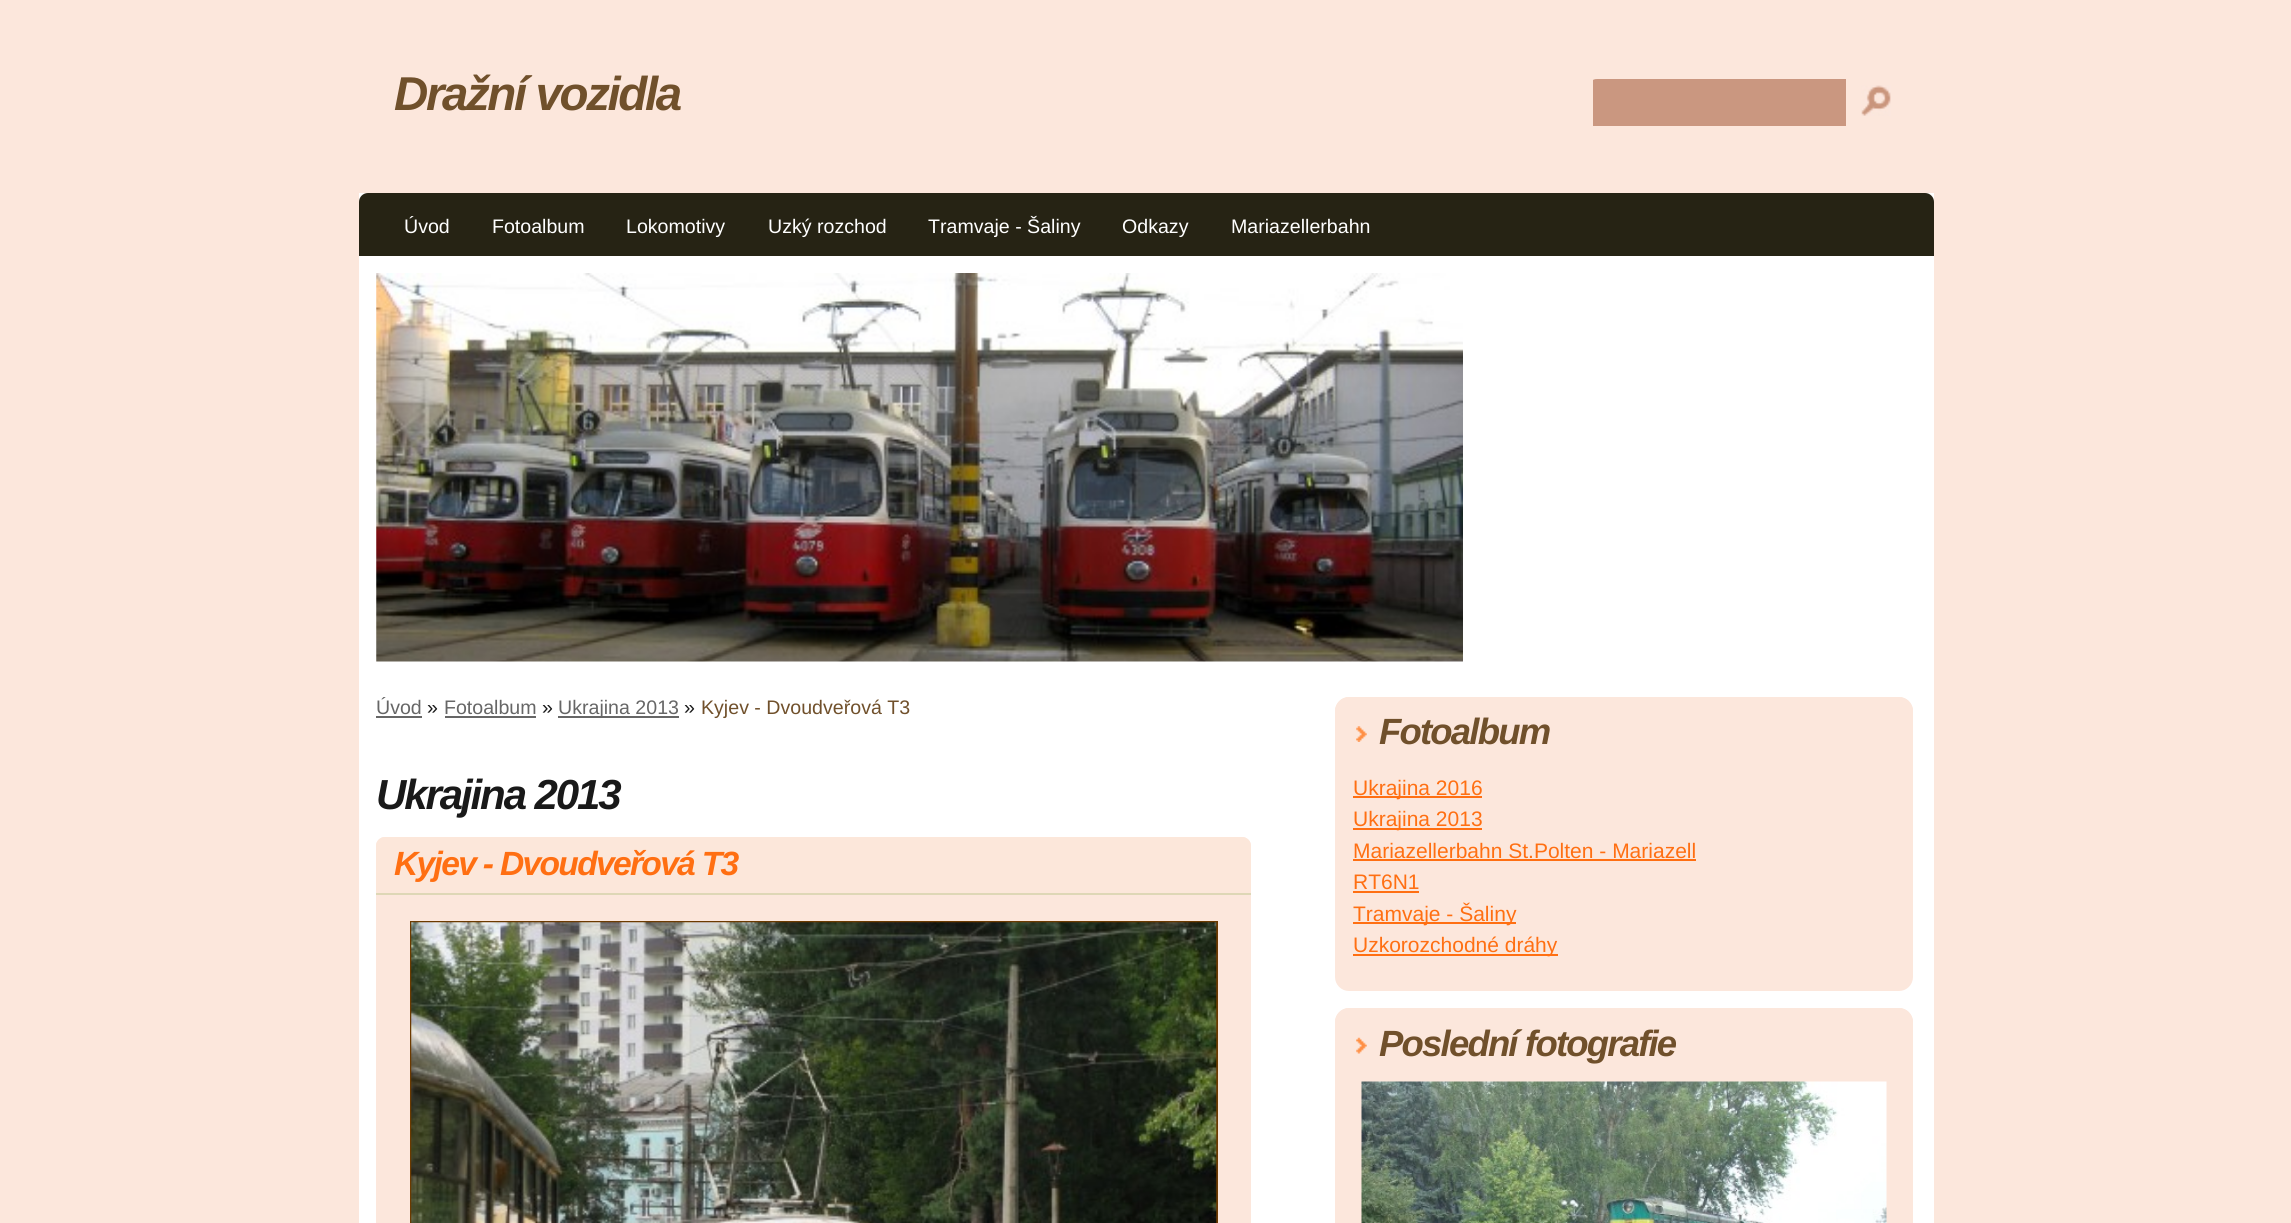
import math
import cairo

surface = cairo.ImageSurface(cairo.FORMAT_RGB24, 2291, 1223)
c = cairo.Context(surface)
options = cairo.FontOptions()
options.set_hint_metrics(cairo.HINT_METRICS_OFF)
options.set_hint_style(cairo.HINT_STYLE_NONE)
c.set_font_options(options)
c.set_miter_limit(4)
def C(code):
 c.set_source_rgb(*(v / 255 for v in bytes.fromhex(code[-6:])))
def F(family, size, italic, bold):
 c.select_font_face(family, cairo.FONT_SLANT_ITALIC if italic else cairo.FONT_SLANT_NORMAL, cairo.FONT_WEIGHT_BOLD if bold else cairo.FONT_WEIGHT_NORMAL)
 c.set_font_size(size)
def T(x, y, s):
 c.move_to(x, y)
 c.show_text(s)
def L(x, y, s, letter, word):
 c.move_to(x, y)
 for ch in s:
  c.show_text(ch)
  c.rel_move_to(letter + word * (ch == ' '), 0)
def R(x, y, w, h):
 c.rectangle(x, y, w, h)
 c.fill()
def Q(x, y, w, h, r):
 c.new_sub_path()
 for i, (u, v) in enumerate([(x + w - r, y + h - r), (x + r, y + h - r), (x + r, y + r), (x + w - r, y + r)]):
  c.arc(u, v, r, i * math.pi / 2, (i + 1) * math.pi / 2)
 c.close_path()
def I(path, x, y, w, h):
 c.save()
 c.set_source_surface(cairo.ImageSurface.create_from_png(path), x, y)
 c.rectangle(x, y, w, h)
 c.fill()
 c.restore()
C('fce7dc')
c.paint()
C('ffffff')
R(359,193,1575,1030)
I('1.png',376,273,1087,389)
F('Liberation Sans',47.5,1,1)
C('70502b')
L(394,110,'Dražní vozidla',-2.4,0)
C('262314')
c.new_path()
c.move_to(368,193)
c.line_to(1925,193)
c.curve_to(1930,193,1934,197,1934,202)
c.line_to(1934,256)
c.line_to(359,256)
c.line_to(359,202)
c.curve_to(359,197,363,193,368,193)
c.close_path()
c.fill()
F('Liberation Sans',19.6,0,0)
C('ffffff')
T(404,233,'Úvod')
T(492,233,'Fotoalbum')
T(626,233,'Lokomotivy')
T(768,233,'Uzký rozchod')
T(928,233,'Tramvaje - Šaliny')
T(1122,233,'Odkazy')
T(1231,233,'Mariazellerbahn')
C('666666')
T(376,714,'Úvod')
R(376,716,46,2)
C('191919')
T(427,714,'»')
C('666666')
T(444,714,'Fotoalbum')
R(445,716,91,2)
C('191919')
T(542,714,'»')
C('666666')
R(558,716,121,2)
T(558,714,'Ukrajina 2013')
C('191919')
T(684,714,'»')
C('70502b')
T(701,714,'Kyjev - Dvoudveřová T3')
F('Liberation Sans',42,1,1)
C('191919')
L(376,809,'Ukrajina 2013',-2.1,0)
C('fce7dc')
c.new_path()
c.move_to(385,837)
c.line_to(1242,837)
c.curve_to(1247,837,1251,841,1251,846)
c.line_to(1251,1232)
c.line_to(376,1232)
c.line_to(376,846)
c.curve_to(376,841,380,837,385,837)
c.close_path()
c.fill()
C('fce7da')
c.new_path()
c.move_to(385,837)
c.line_to(1242,837)
c.curve_to(1247,837,1251,841,1251,846)
c.line_to(1251,894)
c.line_to(376,894)
c.line_to(376,846)
c.curve_to(376,841,380,837,385,837)
c.close_path()
c.fill()
C('ded7b6')
R(376,893,875,2)
F('Liberation Sans',33.6,1,1)
C('ff6f12')
L(394,875,'Kyjev - Dvoudveřová T3',-1.7,0)
c.rectangle(411,922,806,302)
C('6c3a00')
c.stroke()
I('2.png',411,922,806,301)
c.save()
Q(1584,79,350,59,14)
c.clip()
C('ca9780')
R(1593,79,251,45)
c.restore()
C('ca9780')
c.set_fill_rule(cairo.FILL_RULE_EVEN_ODD)
c.new_path()
c.move_to(1598,79)
c.line_to(1593,80)
c.line_to(1593,126)
c.line_to(1846,126)
c.line_to(1846,79)
c.close_path()
c.move_to(1595,81)
c.line_to(1595,124)
c.line_to(1844,124)
c.line_to(1844,81)
c.close_path()
c.fill()
I('3.png',1861,85,30,31)
C('fce7dc')
Q(1335,697,578,294,14)
c.fill()
c.new_path()
c.move_to(1349,697)
c.line_to(1899,697)
c.curve_to(1906.5,697,1913,703.5,1913,711)
c.line_to(1913,753)
c.line_to(1335,753)
c.line_to(1335,711)
c.curve_to(1335,703.5,1341.5,697,1349,697)
c.close_path()
c.fill()
I('4.png',1356,726,11,16)
F('Liberation Sans',36.5,1,1)
C('70502b')
L(1379,744,'Fotoalbum',-1.8,0)
C('ff6f12')
R(1353,796,129,2)
F('Liberation Sans',21,0,0)
T(1353,795,'Ukrajina 2016')
R(1353,828,129,2)
T(1353,826,'Ukrajina 2013')
T(1353,858,'Mariazellerbahn St.Polten - Mariazell')
R(1353,859,343,2)
T(1353,889,'RT6N1')
R(1353,891,66,2)
R(1353,922,163,2)
T(1353,921,'Tramvaje - Šaliny')
R(1353,954,205,2)
T(1353,952,'Uzkorozchodné dráhy')
C('fce7dc')
Q(1335,1008,578,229,14)
c.fill()
c.new_path()
c.move_to(1349,1008)
c.line_to(1899,1008)
c.curve_to(1906.5,1008,1913,1014.5,1913,1022)
c.line_to(1913,1064)
c.line_to(1335,1064)
c.line_to(1335,1022)
c.curve_to(1335,1014.5,1341.5,1008,1349,1008)
c.close_path()
c.fill()
I('5.png',1356,1037,11,17)
F('Liberation Sans',36.5,1,1)
C('70502b')
L(1379,1056,'Poslední fotografie',-1.8,0)
I('6.png',1361,1081,526,142)
surface.write_to_png('o.png')
